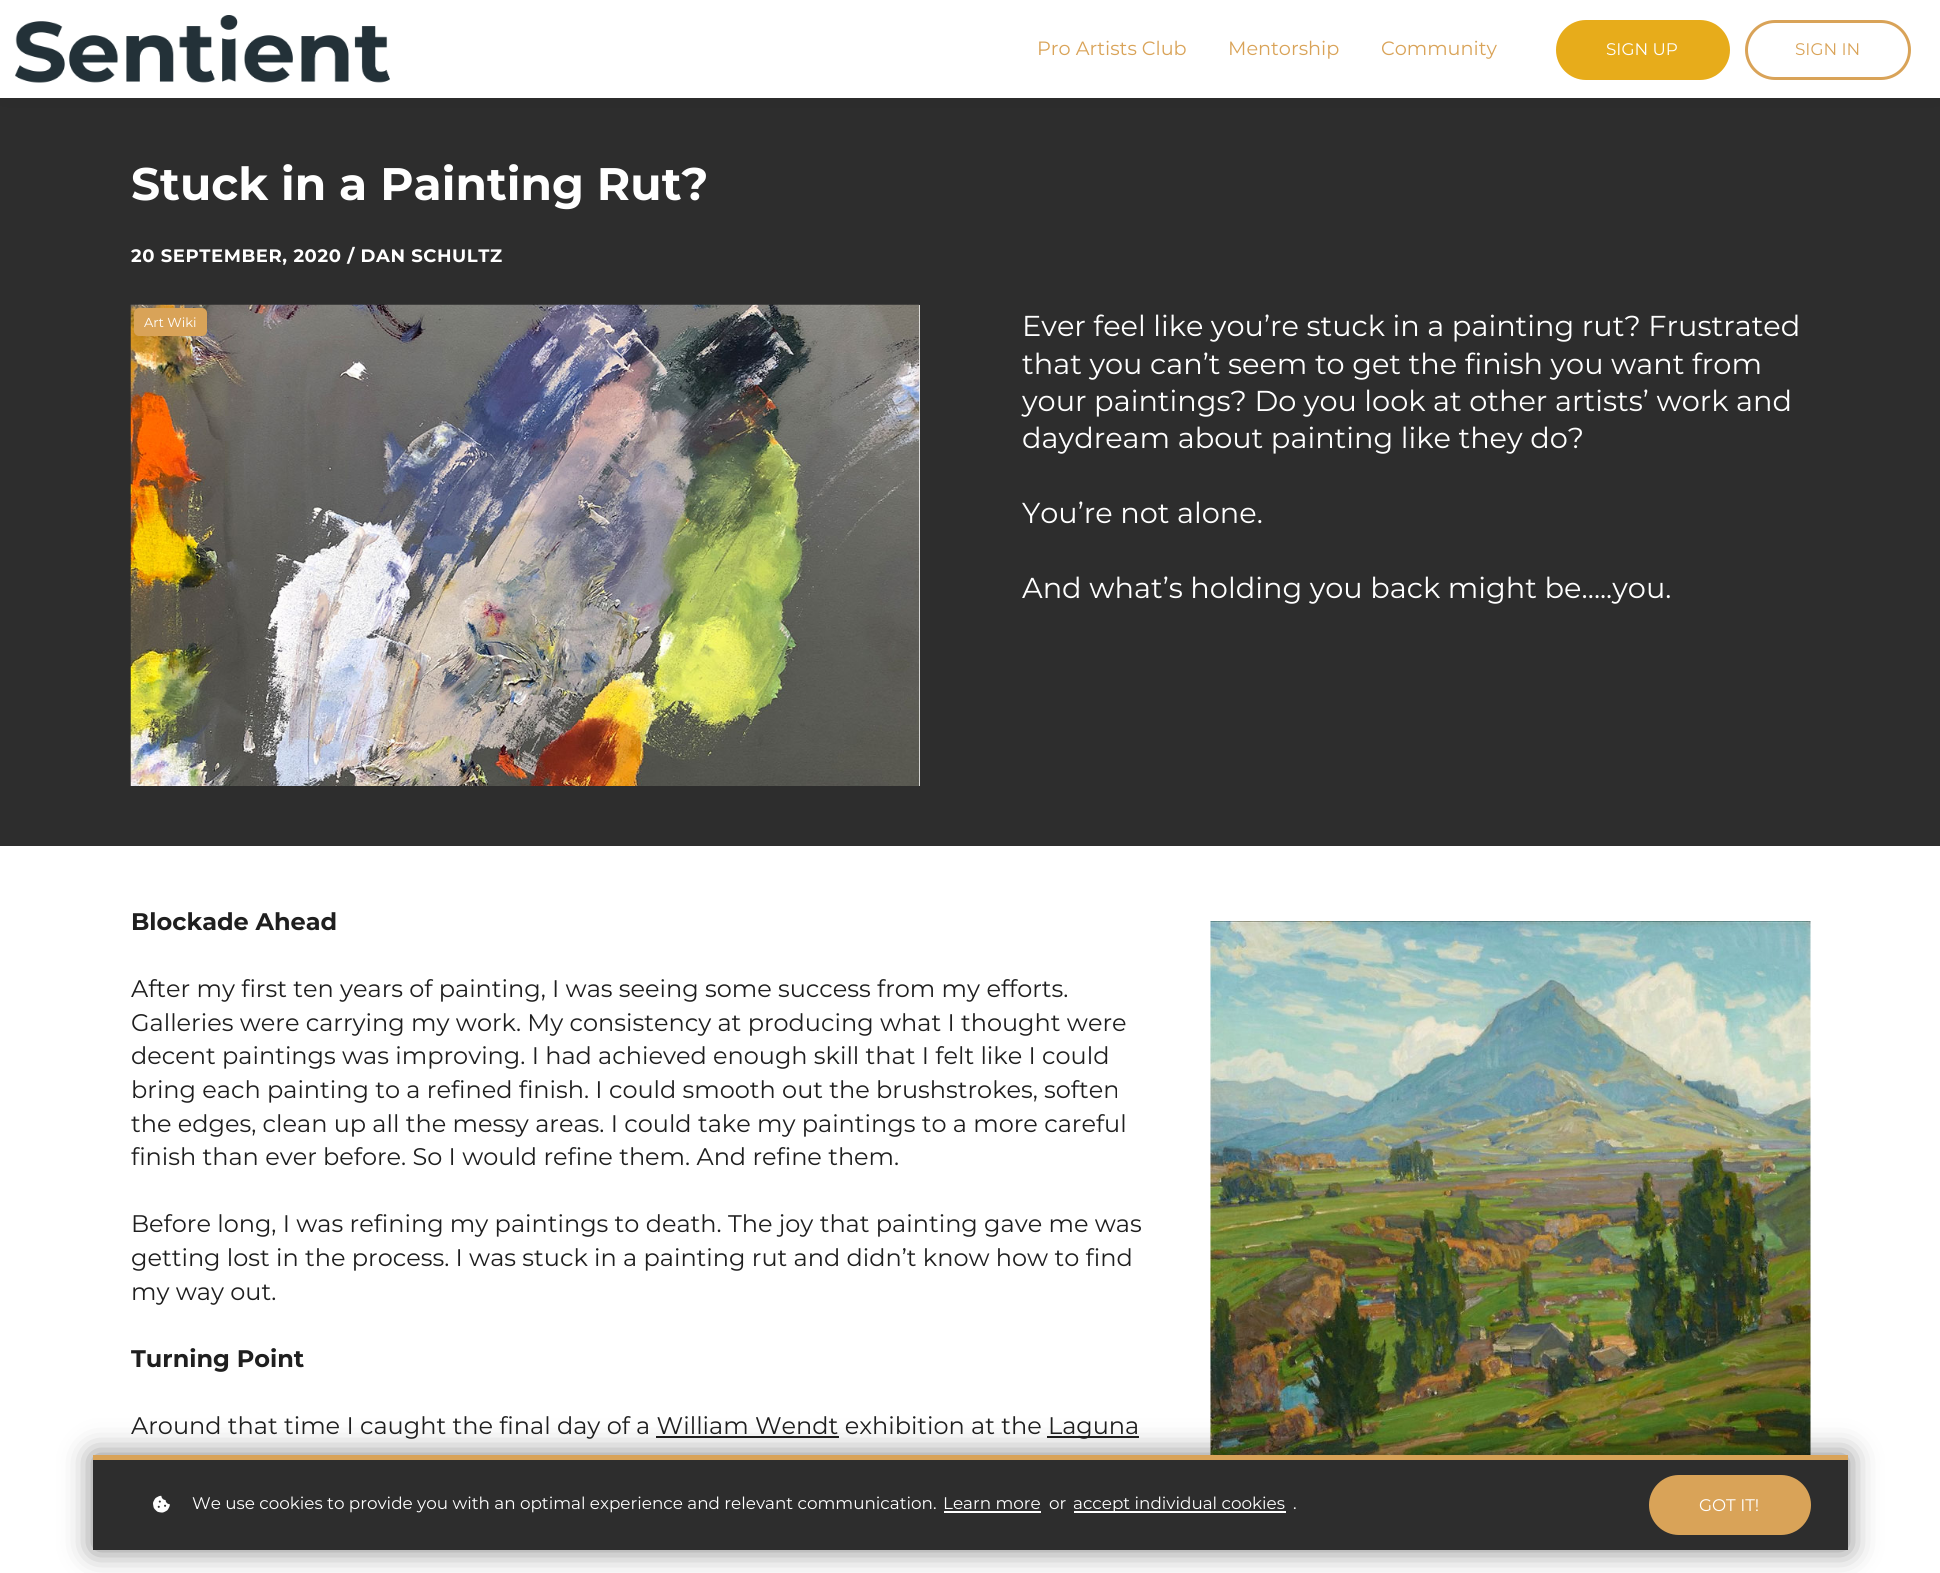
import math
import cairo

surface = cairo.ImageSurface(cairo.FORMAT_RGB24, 1940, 1573)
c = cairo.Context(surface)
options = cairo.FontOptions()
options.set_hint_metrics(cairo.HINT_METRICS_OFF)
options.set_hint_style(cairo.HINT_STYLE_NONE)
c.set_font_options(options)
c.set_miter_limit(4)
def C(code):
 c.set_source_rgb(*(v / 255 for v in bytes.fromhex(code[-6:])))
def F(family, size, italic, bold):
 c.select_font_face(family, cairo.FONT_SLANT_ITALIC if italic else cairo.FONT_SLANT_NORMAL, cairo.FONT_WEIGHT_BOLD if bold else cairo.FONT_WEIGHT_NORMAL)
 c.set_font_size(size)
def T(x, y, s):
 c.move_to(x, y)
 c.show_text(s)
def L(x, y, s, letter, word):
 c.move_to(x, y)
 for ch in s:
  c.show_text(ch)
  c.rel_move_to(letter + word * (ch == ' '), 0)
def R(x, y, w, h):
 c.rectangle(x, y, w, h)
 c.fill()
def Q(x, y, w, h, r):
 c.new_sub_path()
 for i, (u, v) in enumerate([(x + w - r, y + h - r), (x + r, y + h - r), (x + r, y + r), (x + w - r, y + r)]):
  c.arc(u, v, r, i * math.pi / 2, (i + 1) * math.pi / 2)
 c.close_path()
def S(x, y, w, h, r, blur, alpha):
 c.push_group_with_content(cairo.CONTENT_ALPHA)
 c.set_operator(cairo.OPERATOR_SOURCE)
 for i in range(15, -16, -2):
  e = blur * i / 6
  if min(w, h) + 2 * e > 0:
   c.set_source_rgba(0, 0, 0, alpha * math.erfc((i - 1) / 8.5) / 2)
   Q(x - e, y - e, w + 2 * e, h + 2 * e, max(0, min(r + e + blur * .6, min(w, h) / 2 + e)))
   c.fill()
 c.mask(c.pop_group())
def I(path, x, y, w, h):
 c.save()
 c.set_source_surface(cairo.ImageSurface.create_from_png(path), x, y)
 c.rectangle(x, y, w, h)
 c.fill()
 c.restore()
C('ffffff')
c.paint()
C('2d2d2d')
R(0,98,1940,748)
C('000000')
S(0,0,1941,98,0,11,.05)
C('ffffff')
R(0,0,1940,98)
I('1.png',15,15,375,68)
F('Montserrat',19.25,0,0)
C('d9a358')
T(1037,55,'Pro Artists Club')
T(1228,55,'Mentorship')
T(1381,55,'Community')
C('e7ac1b')
Q(1556,20,174,60,30)
c.fill()
F('Montserrat',16.8,0,0)
C('ffffff')
T(1606,55,'SIGN UP')
Q(1746.5,21.5,163,57,28.5)
C('d9a358')
c.set_line_width(3)
c.stroke()
T(1795,55,'SIGN IN')
F('Montserrat',45.6,0,1)
C('ffffff')
T(131,200,'Stuck in a Painting Rut?')
F('Montserrat',18,0,1)
L(131,262,'20 SEPTEMBER, 2020 / DAN SCHULTZ',.6,0)
R(919,305,1,481)
I('2.png',130,304,790,482)
C('000000')
S(134,312,73,29,5,4,.1)
C('d9a358')
Q(134,308,73,28,5)
c.fill()
F('Montserrat',13,0,0)
C('ffffff')
T(144,327,'Art Wiki')
F('Montserrat',28.8,0,0)
T(1022,336,'Ever feel like you’re stuck in a painting rut? Frustrated')
T(1022,374,'that you can’t seem to get the finish you want from')
T(1022,411,'your paintings? Do you look at other artists’ work and')
T(1022,448,'daydream about painting like they do?')
T(1022,523,'You’re not alone.')
T(1022,598,'And what’s holding you back might be…..you.')
F('Montserrat',24,0,1)
C('1f1f1f')
T(131,930,'Blockade Ahead')
F('Montserrat',24,0,0)
T(131,997,'After my first ten years of painting, I was seeing some success from my efforts.')
T(131,1031,'Galleries were carrying my work. My consistency at producing what I thought were')
T(131,1064,'decent paintings was improving. I had achieved enough skill that I felt like I could')
T(131,1098,'bring each painting to a refined finish. I could smooth out the brushstrokes, soften')
T(131,1132,'the edges, clean up all the messy areas. I could take my paintings to a more careful')
T(131,1165,'finish than ever before. So I would refine them. And refine them.')
T(131,1232,'Before long, I was refining my paintings to death. The joy that painting gave me was')
T(131,1266,'getting lost in the process. I was stuck in a painting rut and didn’t know how to find')
T(131,1300,'my way out.')
F('Montserrat',24,0,1)
T(131,1367,'Turning Point')
F('Montserrat',24,0,0)
T(131,1434,'Around that time I caught the final day of a William Wendt exhibition at the')
R(1047,1436,92,2)
T(1048,1434,'Laguna')
R(656,1436,183,2)
I('3.png',1210,921,601,534)
C('000000')
S(93,1455,1755,95,0,15,.5)
C('2d2d2d')
R(93,1460,1755,90)
C('d9a358')
R(93,1455,1755,5)
I('4.png',153,1495,17,18)
F('Montserrat',16.8,0,0)
C('ffffff')
T(192,1509,'We use cookies to provide you with an optimal experience and relevant communication.')
T(943,1509,'Learn more')
R(944,1511,97,2)
T(1049,1509,'or')
R(1074,1511,212,2)
T(1073,1509,'accept individual cookies')
T(1293,1509,'.')
C('d9a358')
Q(1649,1475,162,60,30)
c.fill()
C('ffffff')
T(1699,1511,'GOT IT!')
surface.write_to_png('o.png')
